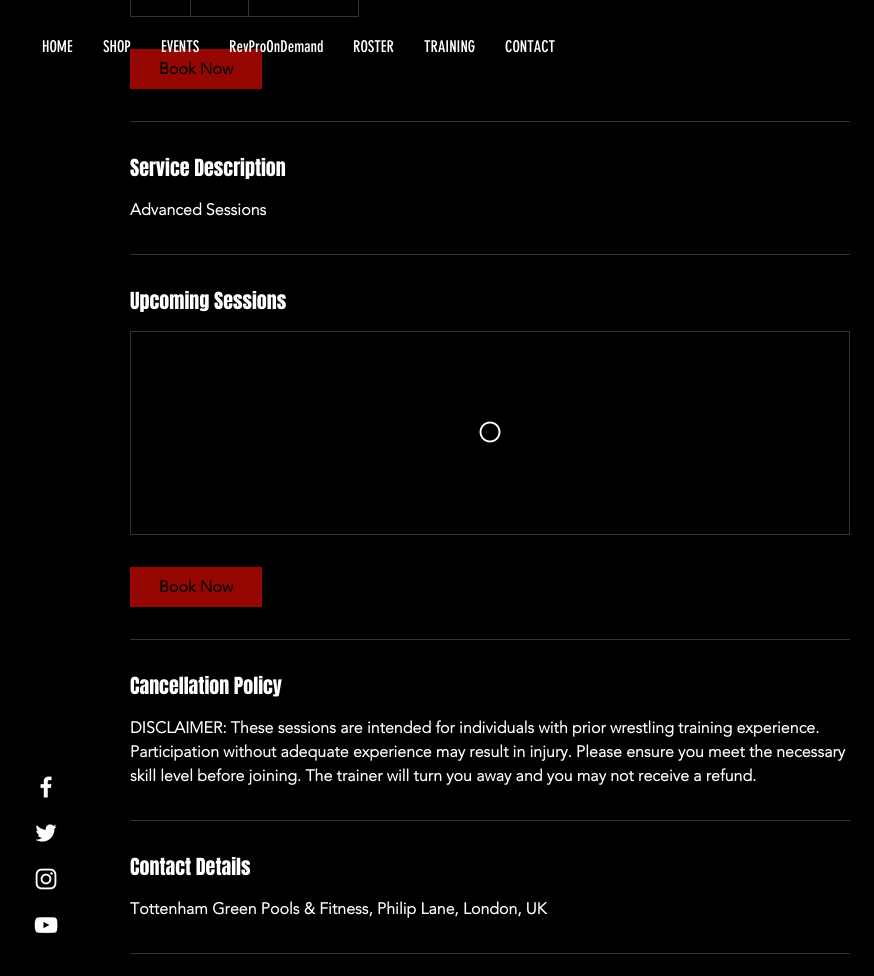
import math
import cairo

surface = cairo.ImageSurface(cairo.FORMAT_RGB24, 874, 976)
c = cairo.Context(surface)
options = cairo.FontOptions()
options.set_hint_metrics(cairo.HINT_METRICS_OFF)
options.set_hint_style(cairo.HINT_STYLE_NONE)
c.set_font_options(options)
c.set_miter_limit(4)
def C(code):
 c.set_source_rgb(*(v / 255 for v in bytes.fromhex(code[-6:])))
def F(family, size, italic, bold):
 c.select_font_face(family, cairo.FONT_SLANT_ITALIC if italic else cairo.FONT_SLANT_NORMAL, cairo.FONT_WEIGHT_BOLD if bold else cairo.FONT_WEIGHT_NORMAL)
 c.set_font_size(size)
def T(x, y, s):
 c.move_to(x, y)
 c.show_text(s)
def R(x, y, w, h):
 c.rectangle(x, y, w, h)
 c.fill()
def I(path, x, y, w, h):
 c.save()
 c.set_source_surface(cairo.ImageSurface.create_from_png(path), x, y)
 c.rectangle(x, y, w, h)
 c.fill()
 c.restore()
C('000000')
c.paint()
F('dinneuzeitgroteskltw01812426',16,0,0)
C('ffffff')
T(42,52,'HOME')
C('960602')
R(130,49,132,40)
C('ffffff')
T(103,52,'SHOP')
T(161,52,'EVENTS')
T(229,52,'RevProOnDemand')
T(353,52,'ROSTER')
T(424,52,'TRAINING')
T(505,52,'CONTACT')
I('1.png',40,776,12,22)
I('2.png',35,824,22,18)
I('3.png',35,868,22,22)
I('4.png',34,917,24,17)
c.rectangle(130.5,-.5,228,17)
C('333333')
c.set_line_width(1)
c.stroke()
c.new_path()
c.move_to(190,16)
c.line_to(190,-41)
c.line_to(191,-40)
c.line_to(191,16)
c.close_path()
c.move_to(248,16)
c.line_to(248,-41)
c.line_to(249,-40)
c.line_to(249,16)
c.close_path()
c.fill()
F('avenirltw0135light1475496',16,0,1)
C('000000')
T(159,74,'Book Now')
C('333333')
R(130,121,720,1)
F('Anton',20,0,0)
C('ffffff')
T(130,176,'Service Description')
F('avenirltw0135light1475496',16,0,1)
T(130,215,'Advanced Sessions')
C('333333')
R(130,254,720,1)
F('Anton',20,0,0)
C('ffffff')
T(130,309,'Upcoming Sessions')
c.rectangle(130.5,331.5,719,203)
C('333333')
c.stroke()
c.arc(490,432,9.5,0,2 * math.pi)
C('ffffff')
c.set_line_width(1.9)
c.stroke()
C('960602')
R(130,567,132,40)
F('avenirltw0135light1475496',16,0,1)
C('000000')
T(159,592,'Book Now')
C('333333')
R(130,639,720,1)
F('Anton',20,0,0)
C('ffffff')
T(130,694,'Cancellation Policy')
F('avenirltw0135light1475496',16,0,1)
T(130,733,'DISCLAIMER: These sessions are intended for individuals with prior wrestling training experience.')
T(130,757,'Participation without adequate experience may result in injury. Please ensure you meet the necessary')
T(130,781,'skill level before joining. The trainer will turn you away and you may not receive a refund.')
C('333333')
R(130,820,720,1)
F('Anton',20,0,0)
C('ffffff')
T(130,875,'Contact Details')
F('avenirltw0135light1475496',16,0,1)
T(130,914,'Tottenham Green Pools & Fitness, Philip Lane, London, UK')
C('333333')
R(130,953,720,1)
surface.write_to_png('o.png')
